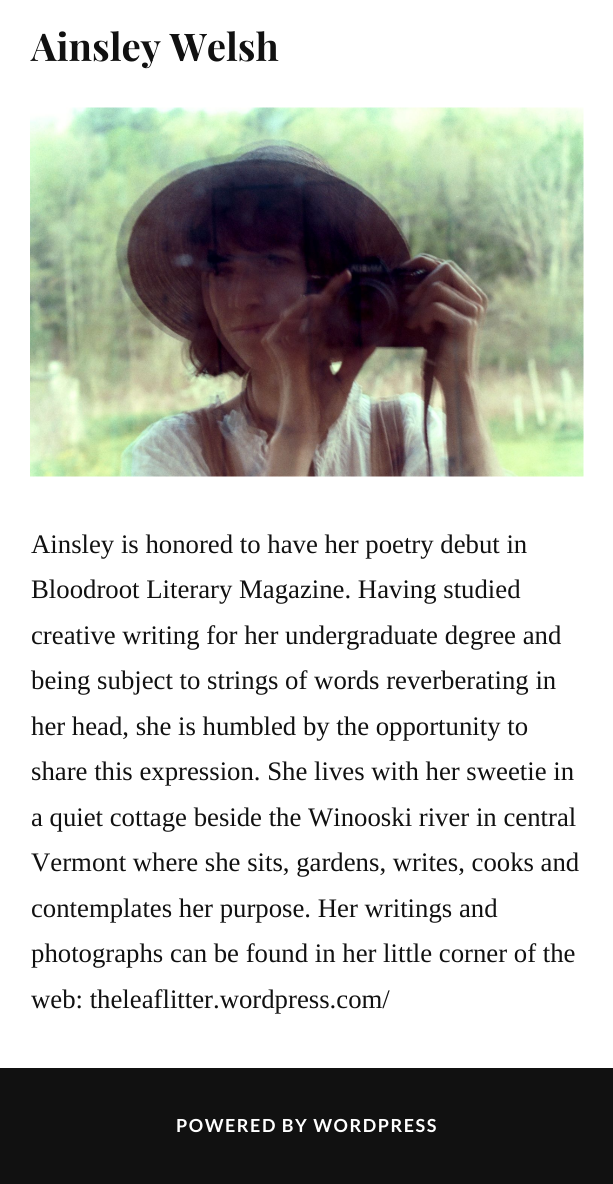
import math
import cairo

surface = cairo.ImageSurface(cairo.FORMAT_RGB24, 613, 1184)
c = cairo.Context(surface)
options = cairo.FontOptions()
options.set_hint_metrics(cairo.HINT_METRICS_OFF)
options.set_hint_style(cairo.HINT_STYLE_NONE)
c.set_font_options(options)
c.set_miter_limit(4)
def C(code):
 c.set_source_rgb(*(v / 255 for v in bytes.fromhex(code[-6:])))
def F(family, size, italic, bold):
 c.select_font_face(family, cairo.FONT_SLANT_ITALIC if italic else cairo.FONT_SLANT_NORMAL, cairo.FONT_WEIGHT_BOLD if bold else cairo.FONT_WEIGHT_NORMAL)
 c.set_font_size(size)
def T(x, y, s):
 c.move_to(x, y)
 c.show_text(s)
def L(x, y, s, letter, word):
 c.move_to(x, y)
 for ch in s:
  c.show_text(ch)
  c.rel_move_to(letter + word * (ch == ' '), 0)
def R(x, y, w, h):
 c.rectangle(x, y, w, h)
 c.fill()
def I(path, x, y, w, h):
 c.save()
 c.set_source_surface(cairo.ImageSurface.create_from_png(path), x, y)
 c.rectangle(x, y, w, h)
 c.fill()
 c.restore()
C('111111')
c.paint()
C('ffffff')
R(0,0,613,1068)
F('Playfair Display',38.25,0,1)
C('111111')
T(31,61,'Ainsley Welsh')
I('1.png',30,107,554,370)
F('Liberation Serif',26.75,0,0)
T(31,553,'Ainsley is honored to have her poetry debut in')
T(31,598,'Bloodroot Literary Magazine. Having studied')
T(31,644,'creative writing for her undergraduate degree and')
T(31,689,'being subject to strings of words reverberating in')
T(31,735,'her head, she is humbled by the opportunity to')
T(31,780,'share this expression. She lives with her sweetie in')
T(31,826,'a quiet cottage beside the Winooski river in central')
T(31,871,'Vermont where she sits, gardens, writes, cooks and')
T(31,917,'contemplates her purpose. Her writings and')
T(31,962,'photographs can be found in her little corner of the')
T(31,1008,'web: theleaflitter.wordpress.com/')
F('Lato',18,0,1)
C('ffffff')
L(176,1132,'POWERED BY WORDPRESS',1.5,0)
surface.write_to_png('o.png')
